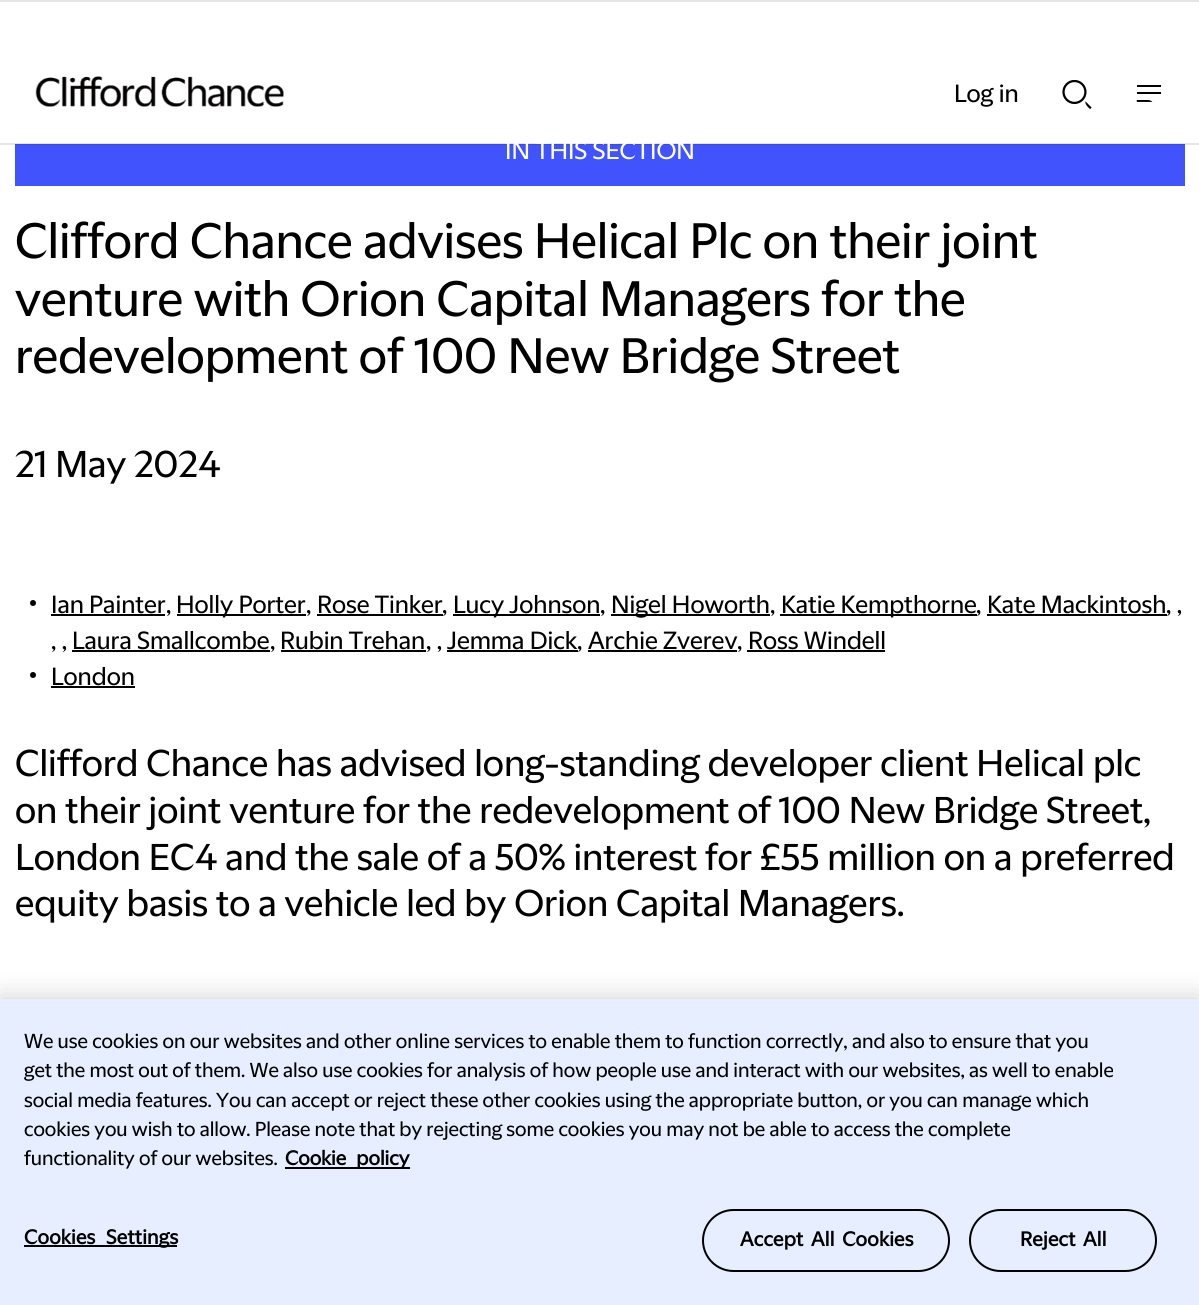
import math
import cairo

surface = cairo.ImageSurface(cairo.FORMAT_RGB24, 1199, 1305)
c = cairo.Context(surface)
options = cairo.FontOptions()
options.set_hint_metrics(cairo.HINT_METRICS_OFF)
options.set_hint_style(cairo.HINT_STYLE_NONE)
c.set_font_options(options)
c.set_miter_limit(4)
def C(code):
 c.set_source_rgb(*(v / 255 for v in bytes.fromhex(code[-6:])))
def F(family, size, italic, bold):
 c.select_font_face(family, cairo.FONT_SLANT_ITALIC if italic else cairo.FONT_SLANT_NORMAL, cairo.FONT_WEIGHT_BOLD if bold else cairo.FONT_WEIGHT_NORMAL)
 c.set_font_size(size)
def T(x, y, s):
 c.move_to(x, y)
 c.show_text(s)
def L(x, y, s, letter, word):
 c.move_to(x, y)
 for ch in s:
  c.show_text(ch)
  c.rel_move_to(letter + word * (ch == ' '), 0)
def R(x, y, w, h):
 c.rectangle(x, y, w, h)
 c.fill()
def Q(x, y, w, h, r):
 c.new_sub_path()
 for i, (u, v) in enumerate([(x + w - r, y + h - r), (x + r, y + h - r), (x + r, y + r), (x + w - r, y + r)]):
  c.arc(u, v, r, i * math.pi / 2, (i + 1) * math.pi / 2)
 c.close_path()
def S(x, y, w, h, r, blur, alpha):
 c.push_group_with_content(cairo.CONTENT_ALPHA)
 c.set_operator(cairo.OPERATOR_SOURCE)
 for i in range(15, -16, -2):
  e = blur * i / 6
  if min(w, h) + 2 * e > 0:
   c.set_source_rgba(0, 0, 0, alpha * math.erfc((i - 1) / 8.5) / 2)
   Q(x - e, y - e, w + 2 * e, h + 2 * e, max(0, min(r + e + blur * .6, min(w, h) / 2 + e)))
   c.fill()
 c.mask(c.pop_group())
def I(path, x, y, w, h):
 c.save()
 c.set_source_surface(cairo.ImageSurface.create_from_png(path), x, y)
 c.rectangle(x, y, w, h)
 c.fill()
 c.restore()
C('ffffff')
c.paint()
C('e6e6e6')
R(0,0,1199,2)
C('4053fc')
R(15,144,1170,42)
c.set_source_rgba(0.016,0.004,0,0.1)
R(0,143,1199,2)
I('1.png',35,76,249,31)
I('2.png',1062,80,30,29)
I('3.png',1136,85,25,17)
F('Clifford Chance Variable',24,0,0)
C('000000')
T(954,102,'Log in')
C('ffffff')
T(505,159,'IN THIS SECTION')
F('Clifford Chance Variable',48,0,0)
C('000000')
T(15,258,'Clifford Chance advises Helical Plc on their joint')
T(15,316,'venture with Orion Capital Managers for the')
T(15,373,'redevelopment of 100 New Bridge Street')
F('Clifford Chance Variable',36,0,0)
T(15,477,'21 May 2024')
C('040100')
c.new_path()
c.arc(33,603,3,0,2 * math.pi)
c.fill()
F('Clifford Chance Variable',24,0,0)
C('000000')
T(51,613,'Ian Painter')
R(51,614,114,2)
T(166,613,',')
R(177,614,129,2)
T(176,613,'Holly Porter')
T(306,613,',')
T(317,613,'Rose Tinker')
R(317,614,126,2)
T(442,613,',')
R(453,614,147,2)
T(453,613,'Lucy Johnson')
T(600,613,',')
R(611,614,159,2)
T(611,613,'Nigel Howorth')
T(770,613,',')
R(780,614,197,2)
T(781,613,'Katie Kempthorne')
T(976,613,',')
T(987,613,'Kate Mackintosh')
R(987,614,180,2)
T(1166,613,', ,')
T(51,649,', ,')
T(72,649,'Laura Smallcombe')
R(72,650,198,2)
T(270,649,',')
T(280,649,'Rubin Trehan')
R(281,650,145,2)
T(426,649,', ,')
T(447,649,'Jemma Dick')
R(447,650,131,2)
T(577,649,',')
T(588,649,'Archie Zverev')
R(588,650,149,2)
T(737,649,',')
T(748,649,'Ross Windell')
R(747,650,138,2)
C('040100')
c.new_path()
c.arc(33,675,3,0,2 * math.pi)
c.fill()
C('000000')
T(51,685,'London')
R(51,686,84,2)
F('Clifford Chance Variable',36,0,0)
T(15,776,'Clifford Chance has advised long-standing developer client Helical plc')
T(15,823,'on their joint venture for the redevelopment of 100 New Bridge Street,')
T(15,870,'London EC4 and the sale of a 50% interest for £55 million on a preferred')
T(15,916,'equity basis to a vehicle led by Orion Capital Managers.')
C('000000')
S(0,999,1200,306,0,13.5,.2)
C('e6eeff')
R(0,999,1199,306)
F('Clifford Chance Variable',19.5,0,0)
C('000000')
T(24,1048,'We use cookies on our websites and other online services to enable them to function correctly, and also to ensure that you')
T(24,1077,'get the most out of them. We also use cookies for analysis of how people use and interact with our websites, as well to enable')
T(24,1107,'social media features. You can accept or reject these other cookies using the appropriate button, or you can manage which')
T(24,1136,'cookies you wish to allow. Please note that by rejecting some cookies you may not be able to access the complete')
T(24,1165,'functionality of our websites.')
R(285,1167,125,2)
F('Clifford Chance Variable',19.5,0,1)
L(285,1165,'Cookie policy',0,6)
R(24,1245,153,2)
L(24,1244,'Cookies Settings',.25,6)
Q(703,1210,246,61,30.5)
c.stroke()
L(740,1246,'Accept All Cookies',.25,3)
Q(970,1210,186,61,30.5)
c.stroke()
L(1020,1246,'Reject All',.25,3)
surface.write_to_png('o.png')
